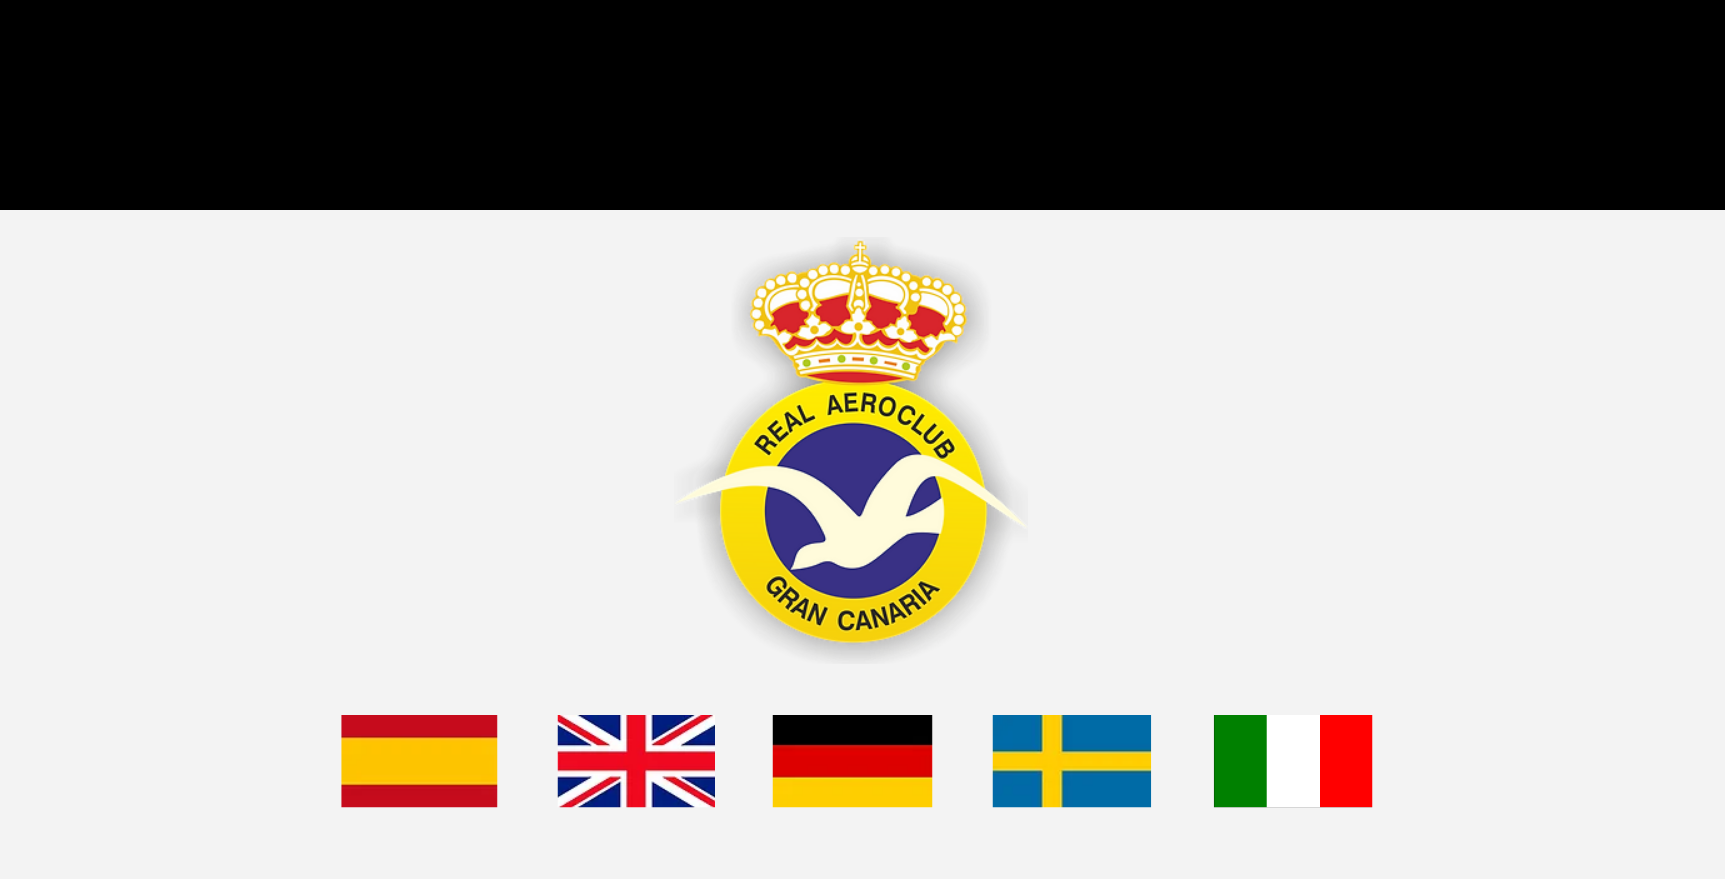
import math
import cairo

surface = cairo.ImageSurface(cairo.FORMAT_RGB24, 1725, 879)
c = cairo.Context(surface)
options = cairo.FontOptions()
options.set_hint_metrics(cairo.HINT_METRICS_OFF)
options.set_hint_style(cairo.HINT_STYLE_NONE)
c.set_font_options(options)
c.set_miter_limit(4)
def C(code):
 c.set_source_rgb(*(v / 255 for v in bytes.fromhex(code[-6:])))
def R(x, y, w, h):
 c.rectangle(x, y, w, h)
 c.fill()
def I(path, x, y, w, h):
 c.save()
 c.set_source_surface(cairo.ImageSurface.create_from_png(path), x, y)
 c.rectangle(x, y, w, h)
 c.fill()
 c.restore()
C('f3f3f3')
c.paint()
C('000000')
R(0,0,1725,210)
I('1.png',674,237,354,427)
I('2.png',341,715,157,93)
I('3.png',557,715,158,93)
I('4.png',772,715,161,93)
I('5.png',992,715,160,93)
I('6.png',1213,715,160,93)
surface.write_to_png('o.png')
